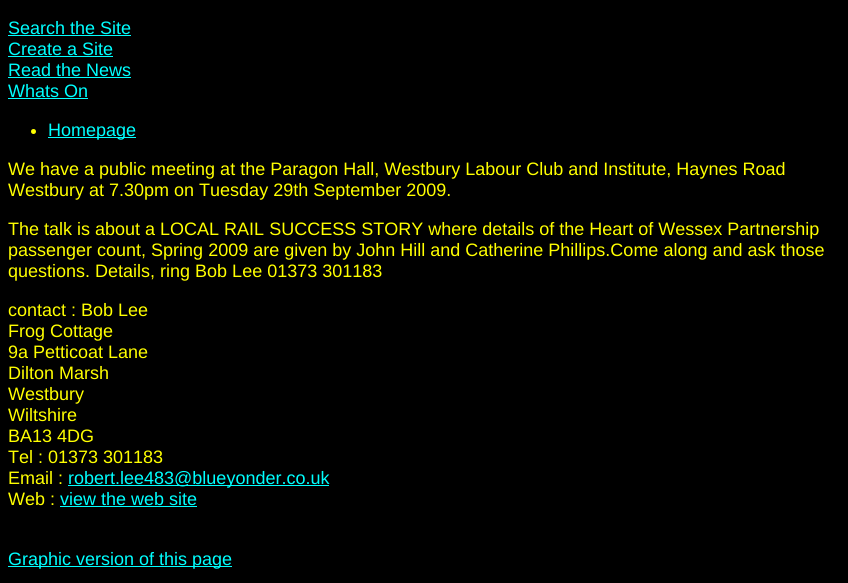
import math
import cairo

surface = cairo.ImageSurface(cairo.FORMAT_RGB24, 848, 583)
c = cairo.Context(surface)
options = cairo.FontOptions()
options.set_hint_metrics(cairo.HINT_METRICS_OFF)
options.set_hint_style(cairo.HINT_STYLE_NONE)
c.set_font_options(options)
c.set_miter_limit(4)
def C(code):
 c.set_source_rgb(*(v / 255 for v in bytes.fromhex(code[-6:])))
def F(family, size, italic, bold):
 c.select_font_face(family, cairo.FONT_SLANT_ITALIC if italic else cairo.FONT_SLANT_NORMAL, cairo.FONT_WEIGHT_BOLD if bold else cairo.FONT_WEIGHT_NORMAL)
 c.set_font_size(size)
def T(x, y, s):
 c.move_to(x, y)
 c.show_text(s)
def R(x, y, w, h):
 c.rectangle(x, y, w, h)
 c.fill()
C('000000')
c.paint()
F('Liberation Sans',18,0,0)
C('00ffff')
T(8,34,'Search the Site')
R(8,35,123,1)
T(8,55,'Create a Site')
R(8,56,105,1)
T(8,76,'Read the News')
R(8,77,123,1)
T(8,97,'Whats On')
R(8,98,80,1)
C('ffff00')
c.new_path()
c.arc(33.5,131.5,2.5,0,2 * math.pi)
c.fill()
C('00ffff')
R(48,137,88,1)
T(48,136,'Homepage')
C('ffff00')
T(8,175,'We have a public meeting at the Paragon Hall, Westbury Labour Club and Institute, Haynes Road')
T(8,196,'Westbury at 7.30pm on Tuesday 29th September 2009.')
T(8,235,'The talk is about a LOCAL RAIL SUCCESS STORY where details of the Heart of Wessex Partnership')
T(8,256,'passenger count, Spring 2009 are given by John Hill and Catherine Phillips.Come along and ask those')
T(8,277,'questions. Details, ring Bob Lee 01373 301183')
T(8,316,'contact : Bob Lee')
T(8,337,'Frog Cottage')
T(8,358,'9a Petticoat Lane')
T(8,379,'Dilton Marsh')
T(8,400,'Westbury')
T(8,421,'Wiltshire')
T(8,442,'BA13 4DG')
T(8,463,'Tel : 01373 301183')
T(8,484,'Email :')
C('00ffff')
R(68,485,261,1)
T(68,484,'robert.lee483@blueyonder.co.uk')
C('ffff00')
T(8,505,'Web :')
C('00ffff')
T(60,505,'view the web site')
R(60,506,137,1)
R(8,566,224,1)
T(8,565,'Graphic version of this page')
surface.write_to_png('o.png')
